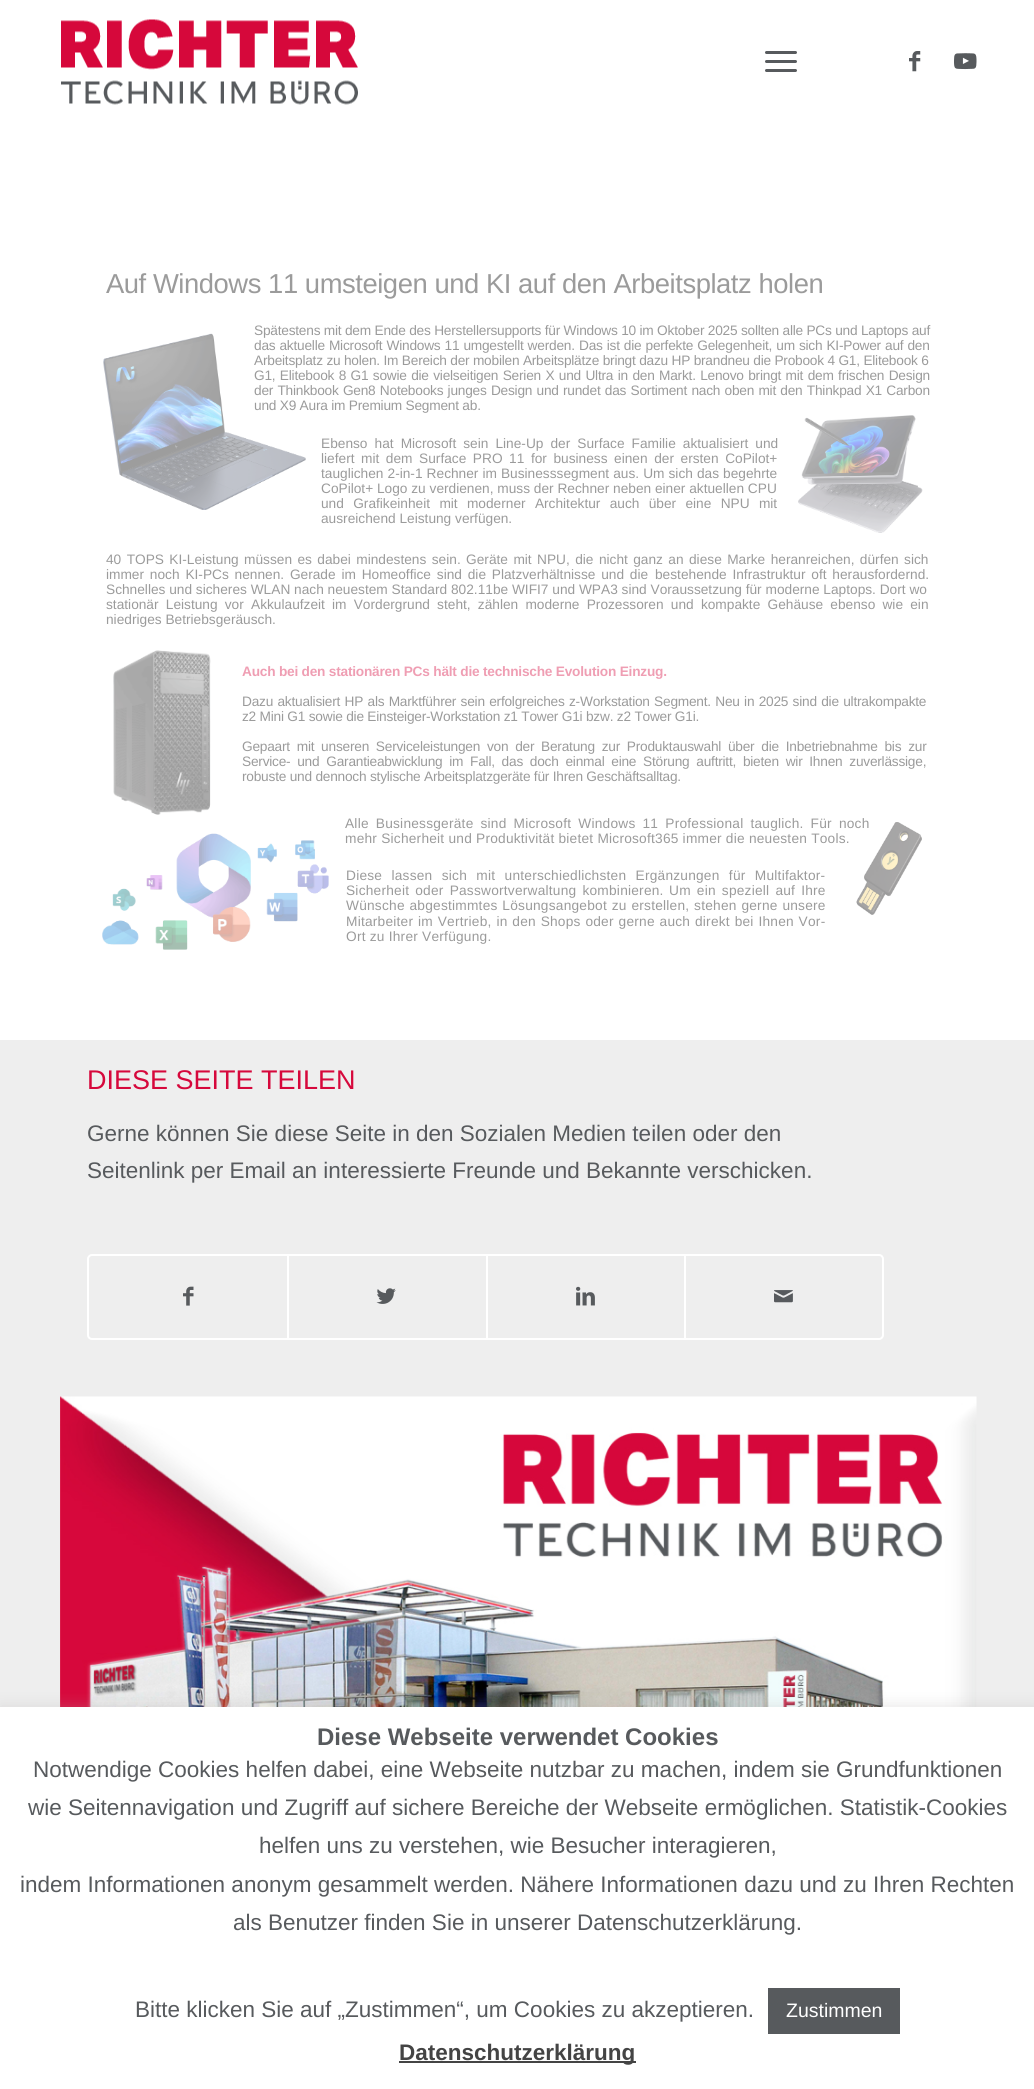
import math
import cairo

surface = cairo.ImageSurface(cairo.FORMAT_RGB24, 1034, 2089)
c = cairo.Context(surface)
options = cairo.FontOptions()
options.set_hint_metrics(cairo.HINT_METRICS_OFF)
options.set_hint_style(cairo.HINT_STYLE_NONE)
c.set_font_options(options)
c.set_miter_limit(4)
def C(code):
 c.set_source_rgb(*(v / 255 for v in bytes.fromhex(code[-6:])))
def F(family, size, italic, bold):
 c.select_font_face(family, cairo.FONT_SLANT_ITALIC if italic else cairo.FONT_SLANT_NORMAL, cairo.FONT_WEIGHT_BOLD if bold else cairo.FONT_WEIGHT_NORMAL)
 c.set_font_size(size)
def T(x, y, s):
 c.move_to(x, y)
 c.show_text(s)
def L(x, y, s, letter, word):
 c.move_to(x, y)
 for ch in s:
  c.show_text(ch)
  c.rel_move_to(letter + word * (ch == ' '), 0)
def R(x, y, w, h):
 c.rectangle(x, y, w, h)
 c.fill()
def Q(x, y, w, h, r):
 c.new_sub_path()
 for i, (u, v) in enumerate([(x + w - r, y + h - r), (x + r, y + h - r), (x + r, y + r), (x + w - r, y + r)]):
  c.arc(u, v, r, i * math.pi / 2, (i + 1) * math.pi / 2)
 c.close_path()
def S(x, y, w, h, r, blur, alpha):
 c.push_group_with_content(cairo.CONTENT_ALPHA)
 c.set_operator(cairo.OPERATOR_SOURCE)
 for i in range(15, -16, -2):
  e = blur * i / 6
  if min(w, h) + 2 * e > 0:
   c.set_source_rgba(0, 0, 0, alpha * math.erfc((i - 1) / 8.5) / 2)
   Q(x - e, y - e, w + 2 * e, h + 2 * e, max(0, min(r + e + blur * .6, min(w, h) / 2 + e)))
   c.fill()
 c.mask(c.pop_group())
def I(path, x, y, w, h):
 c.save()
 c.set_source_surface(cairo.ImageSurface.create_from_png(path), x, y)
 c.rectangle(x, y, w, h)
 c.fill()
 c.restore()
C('ffffff')
c.paint()
I('1.png',61,19,297,86)
C('575a5d')
Q(765,60,32,3,1.5)
c.fill()
Q(765,51,32,3,1.5)
c.fill()
Q(765,69,32,3,1.5)
c.fill()
I('2.png',909,51,12,21)
I('3.png',954,53,23,17)
F('Liberation Sans',27.4,0,0)
C('9b9b9b')
L(106,293,'Auf Windows 11 umsteigen und KI auf den Arbeitsplatz holen',-.45,0)
I('4.png',103,333,203,177)
F('Liberation Sans',13.7,0,0)
L(254,335,'Spätestens mit dem Ende des Herstellersupports für Windows 10 im Oktober 2025 sollten alle PCs und Laptops auf',-.23,0)
L(254,350,'das aktuelle Microsoft Windows 11 umgestellt werden.',-.23,.5)
L(579,350,'Das ist die perfekte Gelegenheit, um sich KI-Power auf den',-.23,.5)
L(254,365,'Arbeitsplatz zu holen. Im Bereich der mobilen Arbeitsplätze bringt dazu HP brandneu die Probook 4 G1, Elitebook 6',-.23,0)
L(254,380,'G1, Elitebook 8 G1 sowie die vielseitigen Serien X und Ultra in den Markt. Lenovo bringt mit dem frischen Design',-.23,.9)
L(254,395,'der Thinkbook Gen8 Notebooks junges Design und rundet das Sortiment nach oben mit den Thinkpad X1 Carbon',-.23,.75)
L(254,410,'und X9 Aura im Premium Segment ab.',-.23,0)
L(321,448,'Ebenso hat Microsoft sein Line-Up der Surface Familie aktualisiert und',0,3.25)
L(321,463,'liefert mit dem Surface PRO 11 for business einen der ersten CoPilot+',0,2.75)
L(321,478,'tauglichen 2-in-1 Rechner im Businesssegment aus. Um sich das begehrte',0,.25)
T(321,493,'CoPilot+ Logo zu verdienen, muss der Rechner neben einer aktuellen CPU')
L(321,508,'und Grafikeinheit mit moderner Architektur auch über eine NPU mit',0,5.5)
T(321,523,'ausreichend Leistung verfügen.')
I('5.png',798,415,125,118)
L(106,564,'40 TOPS KI-Leistung müssen es dabei mindestens sein. Geräte mit NPU, die nicht ganz an diese Marke heranreichen, dürfen sich',0,1.6)
L(106,579,'immer noch KI-PCs nennen. Gerade im Homeoffice sind die Platzverhältnisse und die',0,2)
L(655,579,'bestehende Infrastruktur oft herausfordernd.',0,2)
T(106,594,'Schnelles und sicheres WLAN nach neuestem Standard 802.11be WIFI7 und WPA3 sind Voraussetzung für moderne Laptops. Dort wo')
L(106,609,'stationär Leistung vor Akkulaufzeit im Vordergrund steht, zählen moderne Prozessoren und kompakte Gehäuse ebenso wie ein',0,3.4)
T(106,624,'niedriges Betriebsgeräusch.')
I('6.png',113,650,98,165)
F('Liberation Sans',13.7,0,1)
C('ef9eb3')
L(242,676,'Auch bei den stationären PCs hält die technische Evolution Einzug.',-.23,0)
F('Liberation Sans',13.7,0,0)
C('9b9b9b')
L(242,706,'Dazu aktualisiert HP als Marktführer sein erfolgreiches z-Workstation Segment. Neu in 2025 sind die ultrakompakte',-.23,.8)
L(242,721,'z2 Mini G1 sowie die Einsteiger-Workstation z1 Tower G1i bzw. z2 Tower G1i.',-.23,0)
L(242,751,'Gepaart mit unseren Serviceleistungen von der Beratung zur Produktauswahl über die Inbetriebnahme bis zur',-.23,3.25)
L(242,766,'Service- und Garantieabwicklung im Fall, das doch einmal eine Störung auftritt, bieten wir Ihnen zuverlässige,',-.23,3.25)
L(242,781,'robuste und dennoch stylische Arbeitsplatzgeräte für Ihren Geschäftsalltag.',-.23,0)
I('7.png',102,833,227,117)
I('8.png',856,822,66,93)
L(345,828,'Alle Businessgeräte sind Microsoft Windows 11 Professional tauglich. Für noch',.23,3)
L(345,843,'mehr Sicherheit und Produktivität bietet Microsoft365 immer die neuesten Tools.',.23,0)
L(346,880,'Diese lassen sich mit unterschiedlichsten Ergänzungen für Multifaktor-',.23,5.25)
L(346,895,'Sicherheit oder Passwortverwaltung kombinieren.',.23,2)
L(669,895,'Um ein speziell auf Ihre',.23,2)
L(346,910,'Wünsche abgestimmtes Lösungsangebot zu erstellen, stehen gerne unsere',.23,.75)
L(346,926,'Mitarbeiter im Vertrieb, in den Shops oder gerne auch direkt bei Ihnen Vor-',.23,.75)
L(346,941,'Ort zu Ihrer Verfügung.',.23,0)
C('eeeeee')
R(0,1040,1034,667)
F('Liberation Sans',27,0,0)
C('d6083c')
T(87,1089,'DIESE SEITE TEILEN')
F('Liberation Sans',22.5,0,0)
C('575a5d')
T(87,1141,'Gerne können Sie diese Seite in den Sozialen Medien teilen oder den')
T(87,1178,'Seitenlink per Email an interessierte Freunde und Bekannte verschicken.')
Q(88,1255,795,84,4)
C('ffffff')
c.stroke()
I('9.png',183,1286,11,20)
R(287,1256,2,82)
I('10.png',376,1288,20,16)
R(486,1256,2,82)
I('11.png',576,1286,19,20)
R(684,1256,2,82)
I('12.png',774,1290,19,13)
I('13.png',60,1396,917,311)
C('acabab')
S(0,1706,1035,382,0,7.5,.3)
C('ffffff')
R(0,1707,1034,382)
F('Liberation Sans',24,0,1)
C('575a5d')
T(317,1745,'Diese Webseite verwendet Cookies')
F('Liberation Sans',22.5,0,0)
T(33,1777,'Notwendige Cookies helfen dabei, eine Webseite nutzbar zu machen, indem sie Grundfunktionen')
T(28,1815,'wie Seitennavigation und Zugriff auf sichere Bereiche der Webseite ermöglichen. Statistik-Cookies')
T(259,1853,'helfen uns zu verstehen, wie Besucher interagieren,')
T(20,1892,'indem Informationen anonym gesammelt werden. Nähere Informationen dazu und zu Ihren Rechten')
T(233,1930,'als Benutzer finden Sie in unserer Datenschutzerklärung.')
T(135,2017,'Bitte klicken Sie auf „Zustimmen“, um Cookies zu akzeptieren.')
R(768,1988,132,46)
F('Liberation Sans',19.5,0,0)
C('ffffff')
T(786,2017,'Zustimmen')
C('444444')
R(399,2061,237,2)
F('Liberation Sans',22.5,0,1)
T(399,2060,'Datenschutzerklärung')
surface.write_to_png('o.png')
